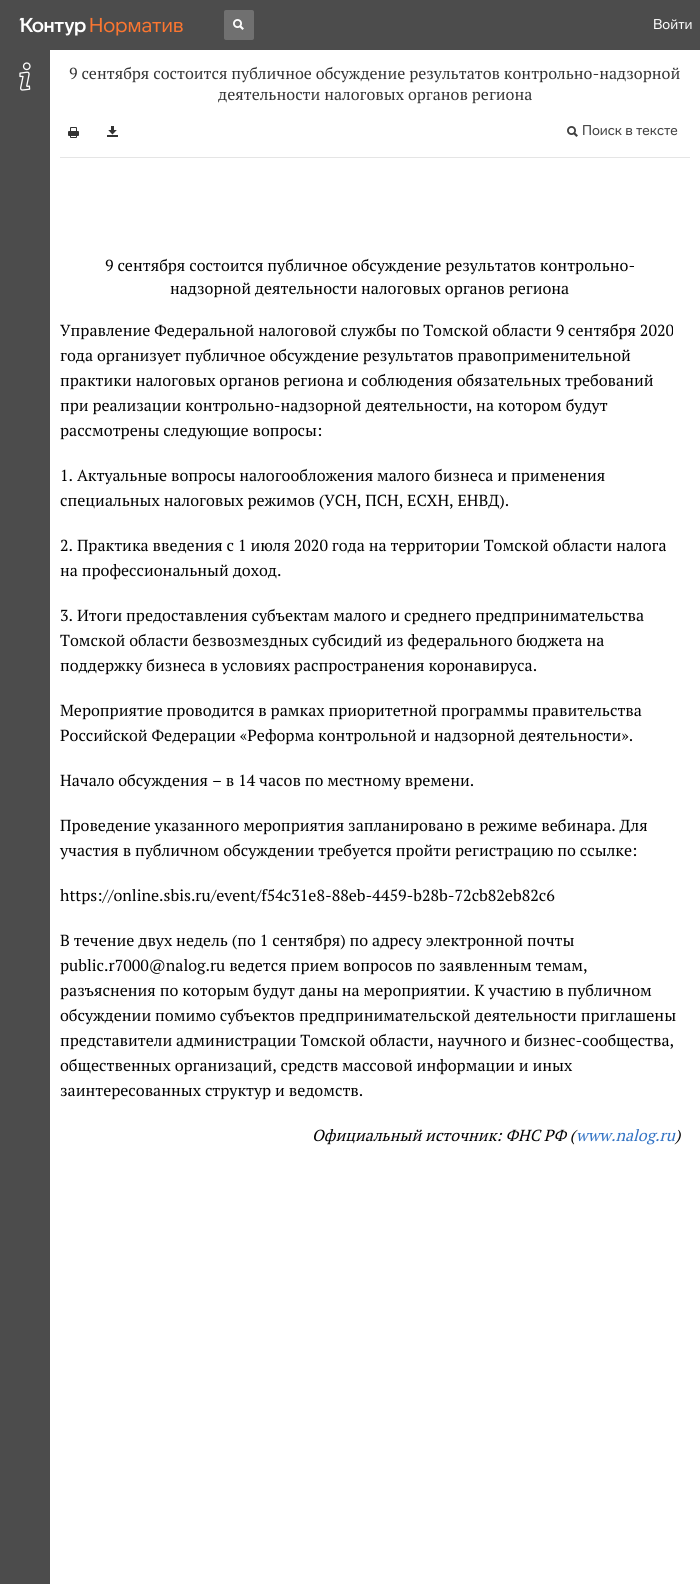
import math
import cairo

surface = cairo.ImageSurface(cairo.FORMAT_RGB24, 700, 1584)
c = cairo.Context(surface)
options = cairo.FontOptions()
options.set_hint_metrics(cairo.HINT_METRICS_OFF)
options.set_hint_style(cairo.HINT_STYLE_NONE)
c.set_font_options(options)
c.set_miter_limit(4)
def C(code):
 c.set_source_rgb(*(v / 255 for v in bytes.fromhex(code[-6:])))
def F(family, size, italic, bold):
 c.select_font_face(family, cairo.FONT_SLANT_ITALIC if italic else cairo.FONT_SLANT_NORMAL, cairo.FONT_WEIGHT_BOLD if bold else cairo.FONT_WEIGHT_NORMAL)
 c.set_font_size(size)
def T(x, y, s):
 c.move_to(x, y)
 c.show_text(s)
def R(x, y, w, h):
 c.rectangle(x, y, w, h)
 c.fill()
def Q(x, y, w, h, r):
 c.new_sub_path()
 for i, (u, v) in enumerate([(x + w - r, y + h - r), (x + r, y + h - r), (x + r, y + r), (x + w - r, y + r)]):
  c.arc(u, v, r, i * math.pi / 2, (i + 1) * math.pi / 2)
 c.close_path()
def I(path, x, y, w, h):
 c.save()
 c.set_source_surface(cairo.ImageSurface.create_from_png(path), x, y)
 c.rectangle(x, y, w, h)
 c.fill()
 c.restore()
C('ffffff')
c.paint()
C('4c4c4c')
R(0,0,700,50)
I('1.png',19,17,67,19)
I('2.png',90,17,93,19)
C('707070')
Q(224,10,30,30,2)
c.fill()
I('3.png',233,19,11,11)
F('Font',14,0,0)
C('ffffff')
T(653,29,'Войти')
C('4c4c4c')
R(0,50,50,1534)
I('4.png',19,62,12,29)
F('PT Serif',16,0,0)
C('333333')
T(69,79,'9 сентября состоится публичное обсуждение результатов контрольно-надзорной')
T(218,100,'деятельности налоговых органов региона')
I('5.png',68,127,11,11)
I('6.png',107,126,11,11)
I('7.png',567,126,11,11)
F('Font',14,0,0)
C('404040')
T(582,135,'Поиск в тексте')
C('e5e5e5')
R(60,157,630,1)
F('PT Serif',16,0,0)
C('000000')
T(105,271,'9 сентября состоится публичное обсуждение результатов контрольно-')
T(170,294,'надзорной деятельности налоговых органов региона')
T(60,336,'Управление Федеральной налоговой службы по Томской области 9 сентября 2020')
T(60,361,'года организует публичное обсуждение результатов правоприменительной')
T(60,386,'практики налоговых органов региона и соблюдения обязательных требований')
T(60,411,'при реализации контрольно-надзорной деятельности, на котором будут')
T(60,436,'рассмотрены следующие вопросы:')
T(60,481,'1. Актуальные вопросы налогообложения малого бизнеса и применения')
T(60,506,'специальных налоговых режимов (УСН, ПСН, ЕСХН, ЕНВД).')
T(60,551,'2. Практика введения с 1 июля 2020 года на территории Томской области налога')
T(60,576,'на профессиональный доход.')
T(60,621,'3. Итоги предоставления субъектам малого и среднего предпринимательства')
T(60,646,'Томской области безвозмездных субсидий из федерального бюджета на')
T(60,671,'поддержку бизнеса в условиях распространения коронавируса.')
T(60,716,'Мероприятие проводится в рамках приоритетной программы правительства')
T(60,741,'Российской Федерации «Реформа контрольной и надзорной деятельности».')
T(60,786,'Начало обсуждения – в 14 часов по местному времени.')
T(60,831,'Проведение указанного мероприятия запланировано в режиме вебинара. Для')
T(60,856,'участия в публичном обсуждении требуется пройти регистрацию по ссылке:')
T(60,901,'https://online.sbis.ru/event/f54c31e8-88eb-4459-b28b-72cb82eb82c6')
T(60,946,'В течение двух недель (по 1 сентября) по адресу электронной почты')
T(60,971,'public.r7000@nalog.ru ведется прием вопросов по заявленным темам,')
T(60,996,'разъяснения по которым будут даны на мероприятии. К участию в публичном')
T(60,1021,'обсуждении помимо субъектов предпринимательской деятельности приглашены')
T(60,1046,'представители администрации Томской области, научного и бизнес-сообщества,')
T(60,1071,'общественных организаций, средств массовой информации и иных')
T(60,1096,'заинтересованных структур и ведомств.')
F('PT Serif',16,1,0)
T(312,1141,'Официальный источник: ФНС РФ (')
C('3072c4')
T(576,1141,'www.nalog.ru')
C('000000')
T(675,1141,')')
surface.write_to_png('o.png')
